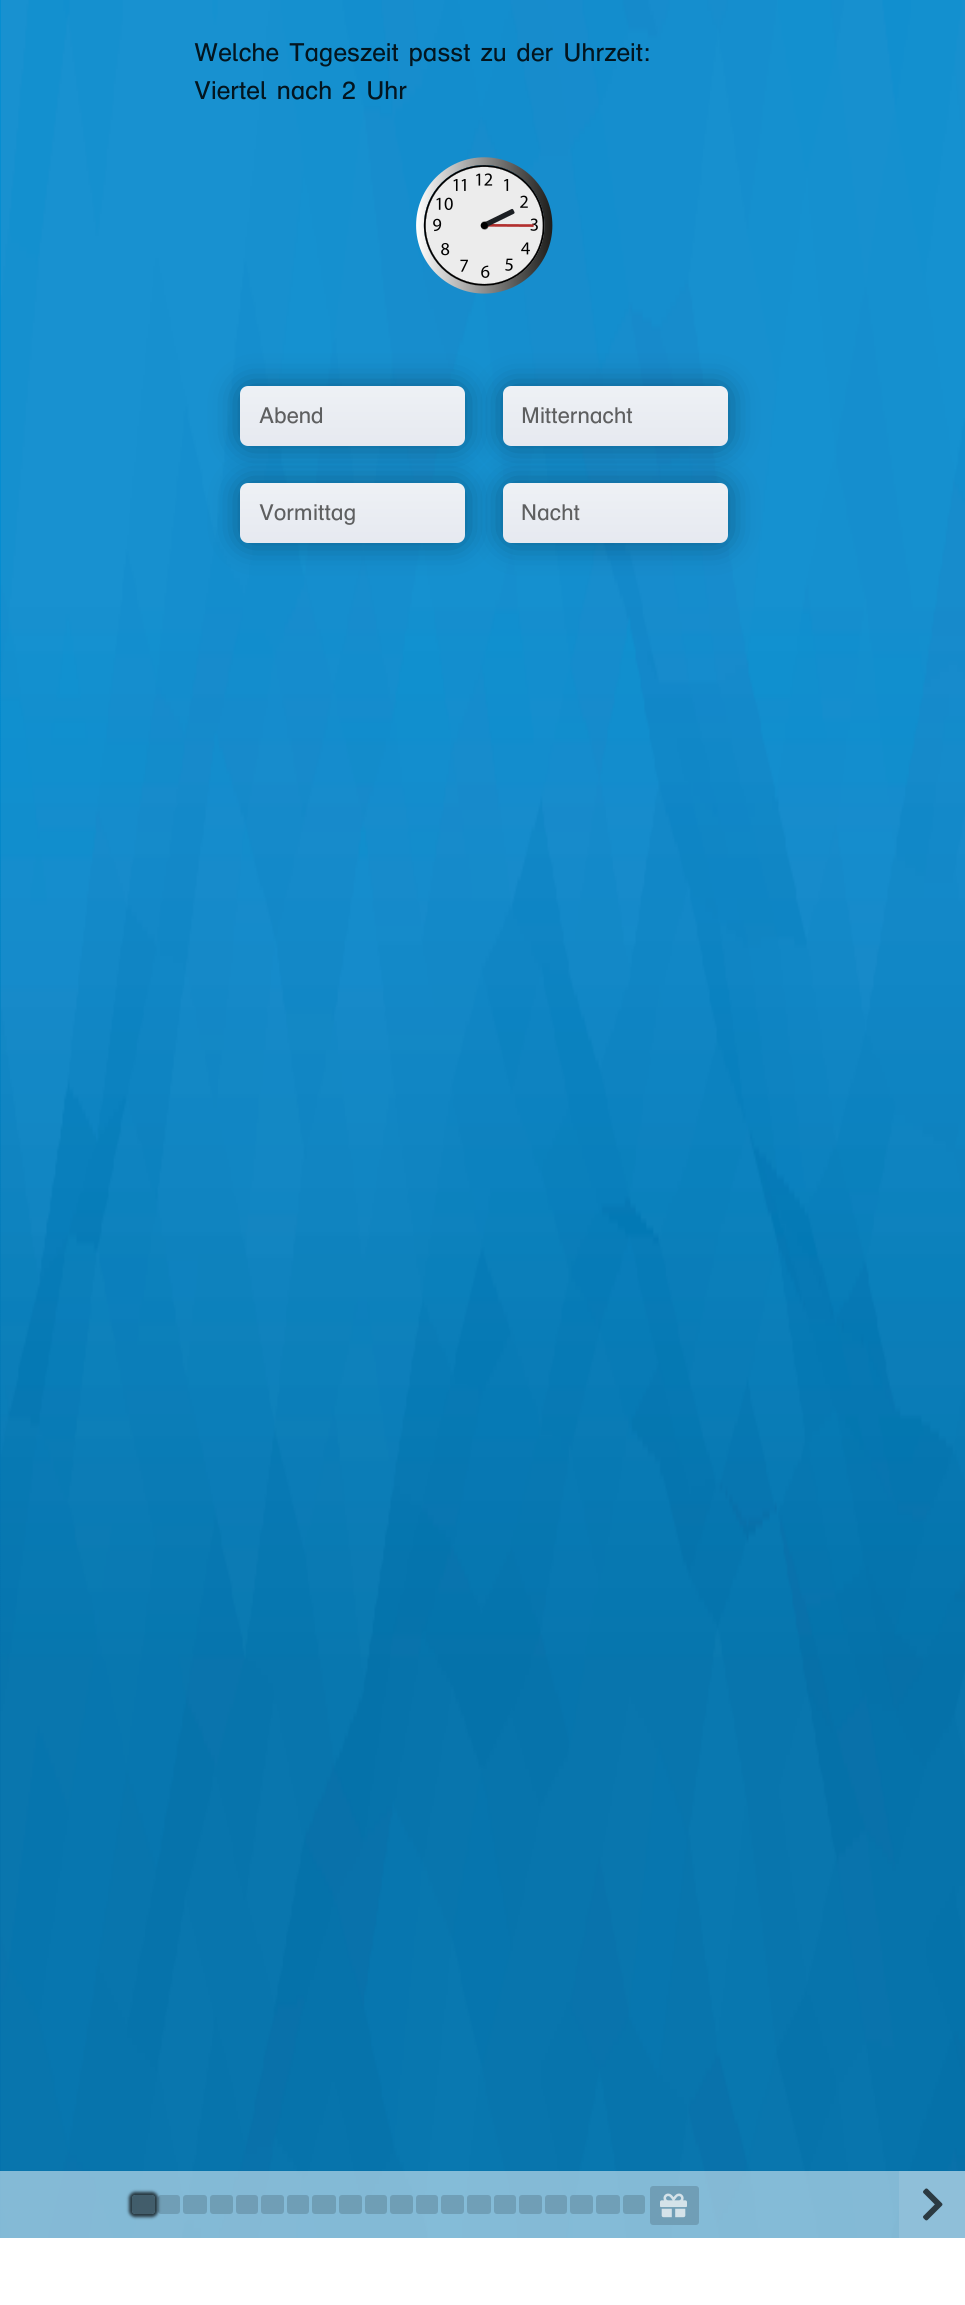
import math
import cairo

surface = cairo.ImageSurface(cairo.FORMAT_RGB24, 965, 2305)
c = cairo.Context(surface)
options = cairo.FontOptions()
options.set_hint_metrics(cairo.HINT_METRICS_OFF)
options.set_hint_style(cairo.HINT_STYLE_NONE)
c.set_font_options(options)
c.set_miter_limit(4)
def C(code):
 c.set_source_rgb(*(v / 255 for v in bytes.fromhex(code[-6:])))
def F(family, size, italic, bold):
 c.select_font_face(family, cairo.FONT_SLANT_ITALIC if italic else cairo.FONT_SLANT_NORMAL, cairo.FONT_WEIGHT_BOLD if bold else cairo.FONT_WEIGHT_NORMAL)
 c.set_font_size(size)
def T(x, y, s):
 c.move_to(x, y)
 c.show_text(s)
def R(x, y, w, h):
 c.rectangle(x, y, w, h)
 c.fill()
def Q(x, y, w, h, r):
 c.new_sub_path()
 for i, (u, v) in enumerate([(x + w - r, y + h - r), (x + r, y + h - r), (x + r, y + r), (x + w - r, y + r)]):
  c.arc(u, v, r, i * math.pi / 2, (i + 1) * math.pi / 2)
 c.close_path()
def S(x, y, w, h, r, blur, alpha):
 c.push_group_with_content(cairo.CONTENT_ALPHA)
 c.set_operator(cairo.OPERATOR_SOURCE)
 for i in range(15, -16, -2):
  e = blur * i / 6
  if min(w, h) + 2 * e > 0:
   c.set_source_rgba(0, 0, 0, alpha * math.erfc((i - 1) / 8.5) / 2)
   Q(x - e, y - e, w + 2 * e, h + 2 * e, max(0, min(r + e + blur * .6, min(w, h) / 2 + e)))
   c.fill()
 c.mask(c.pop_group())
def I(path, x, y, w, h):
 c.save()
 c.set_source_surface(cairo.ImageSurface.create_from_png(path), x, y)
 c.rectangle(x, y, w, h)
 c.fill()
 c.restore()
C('ffffff')
c.paint()
I('1.png',0,0,965,2238)
F('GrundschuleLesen',25.5,0,0)
C('03151f')
T(194,61,'Welche Tageszeit passt zu der Uhrzeit:')
T(194,99,'Viertel nach 2 Uhr')
I('2.png',416,157,137,137)
C('000000')
S(240,386,225,60,8,15,.35)
gradient = cairo.LinearGradient(353,446,353,386)
gradient.add_color_stop_rgba(0,0.902,0.914,0.941,1)
gradient.add_color_stop_rgba(1,0.933,0.945,0.961,1)
c.set_source(gradient)
Q(240,386,225,60,8)
c.fill()
F('GrundschuleLesen',22.5,0,0)
C('5e5f60')
T(259,423,'Abend')
C('000000')
S(503,386,225,60,8,15,.35)
gradient = cairo.LinearGradient(615,446,615,386)
gradient.add_color_stop_rgba(0,0.902,0.914,0.941,1)
gradient.add_color_stop_rgba(1,0.933,0.945,0.961,1)
c.set_source(gradient)
Q(503,386,225,60,8)
c.fill()
C('5e5f60')
T(521,423,'Mitternacht')
C('000000')
S(240,483,225,60,8,15,.35)
gradient = cairo.LinearGradient(353,543,353,483)
gradient.add_color_stop_rgba(0,0.902,0.914,0.941,1)
gradient.add_color_stop_rgba(1,0.933,0.945,0.961,1)
c.set_source(gradient)
Q(240,483,225,60,8)
c.fill()
C('5e5f60')
T(259,520,'Vormittag')
C('000000')
S(503,483,225,60,8,15,.35)
gradient = cairo.LinearGradient(615,543,615,483)
gradient.add_color_stop_rgba(0,0.902,0.914,0.941,1)
gradient.add_color_stop_rgba(1,0.933,0.945,0.961,1)
c.set_source(gradient)
Q(503,483,225,60,8)
c.fill()
C('5e5f60')
T(521,520,'Nacht')
c.set_source_rgba(1,1,1,0.5)
R(0,2171,899,67)
c.save()
c.set_fill_rule(cairo.FILL_RULE_EVEN_ODD)
c.new_path()
c.move_to(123,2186)
c.line_to(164,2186)
c.line_to(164,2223)
c.line_to(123,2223)
c.close_path()
c.move_to(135,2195)
c.line_to(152,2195)
c.curve_to(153.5,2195,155,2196.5,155,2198)
c.line_to(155,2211)
c.curve_to(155,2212.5,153.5,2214,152,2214)
c.line_to(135,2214)
c.curve_to(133.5,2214,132,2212.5,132,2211)
c.line_to(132,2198)
c.curve_to(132,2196.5,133.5,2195,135,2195)
c.close_path()
c.clip()
C('000000')
S(129,2192,29,25,6,1.5,.7)
c.restore()
c.set_source_rgba(0,0,0,0.5)
Q(132,2195,23,19,3)
c.fill()
c.set_source_rgba(0,0,0,0.15)
Q(158,2195,22,19,3)
c.fill()
C('6f9eb6')
Q(183,2195,24,19,3)
c.fill()
C('6f9eb5')
Q(210,2195,23,19,3)
c.fill()
C('709db5')
Q(236,2195,22,19,3)
c.fill()
C('709eb6')
Q(261,2195,23,19,3)
c.fill()
C('6f9eb6')
Q(287,2195,22,19,3)
c.fill()
C('6f9eb5')
Q(312,2195,24,19,3)
c.fill()
Q(339,2195,23,19,3)
c.fill()
Q(365,2195,22,19,3)
c.fill()
Q(390,2195,23,19,3)
c.fill()
C('709fb7')
Q(416,2195,22,19,3)
c.fill()
Q(441,2195,23,19,3)
c.fill()
Q(467,2195,24,19,3)
c.fill()
Q(494,2195,22,19,3)
c.fill()
C('709eb6')
Q(519,2195,23,19,3)
c.fill()
Q(545,2195,22,19,3)
c.fill()
C('709fb7')
Q(570,2195,23,19,3)
c.fill()
Q(596,2195,24,19,3)
c.fill()
C('6f9eb5')
Q(623,2195,22,19,3)
c.fill()
C('709eb6')
Q(650,2186,49,39,3)
c.fill()
I('3.png',660,2193,27,25)
C('8fbfd9')
R(899,2171,66,67)
I('4.png',923,2188,20,33)
surface.write_to_png('o.png')
